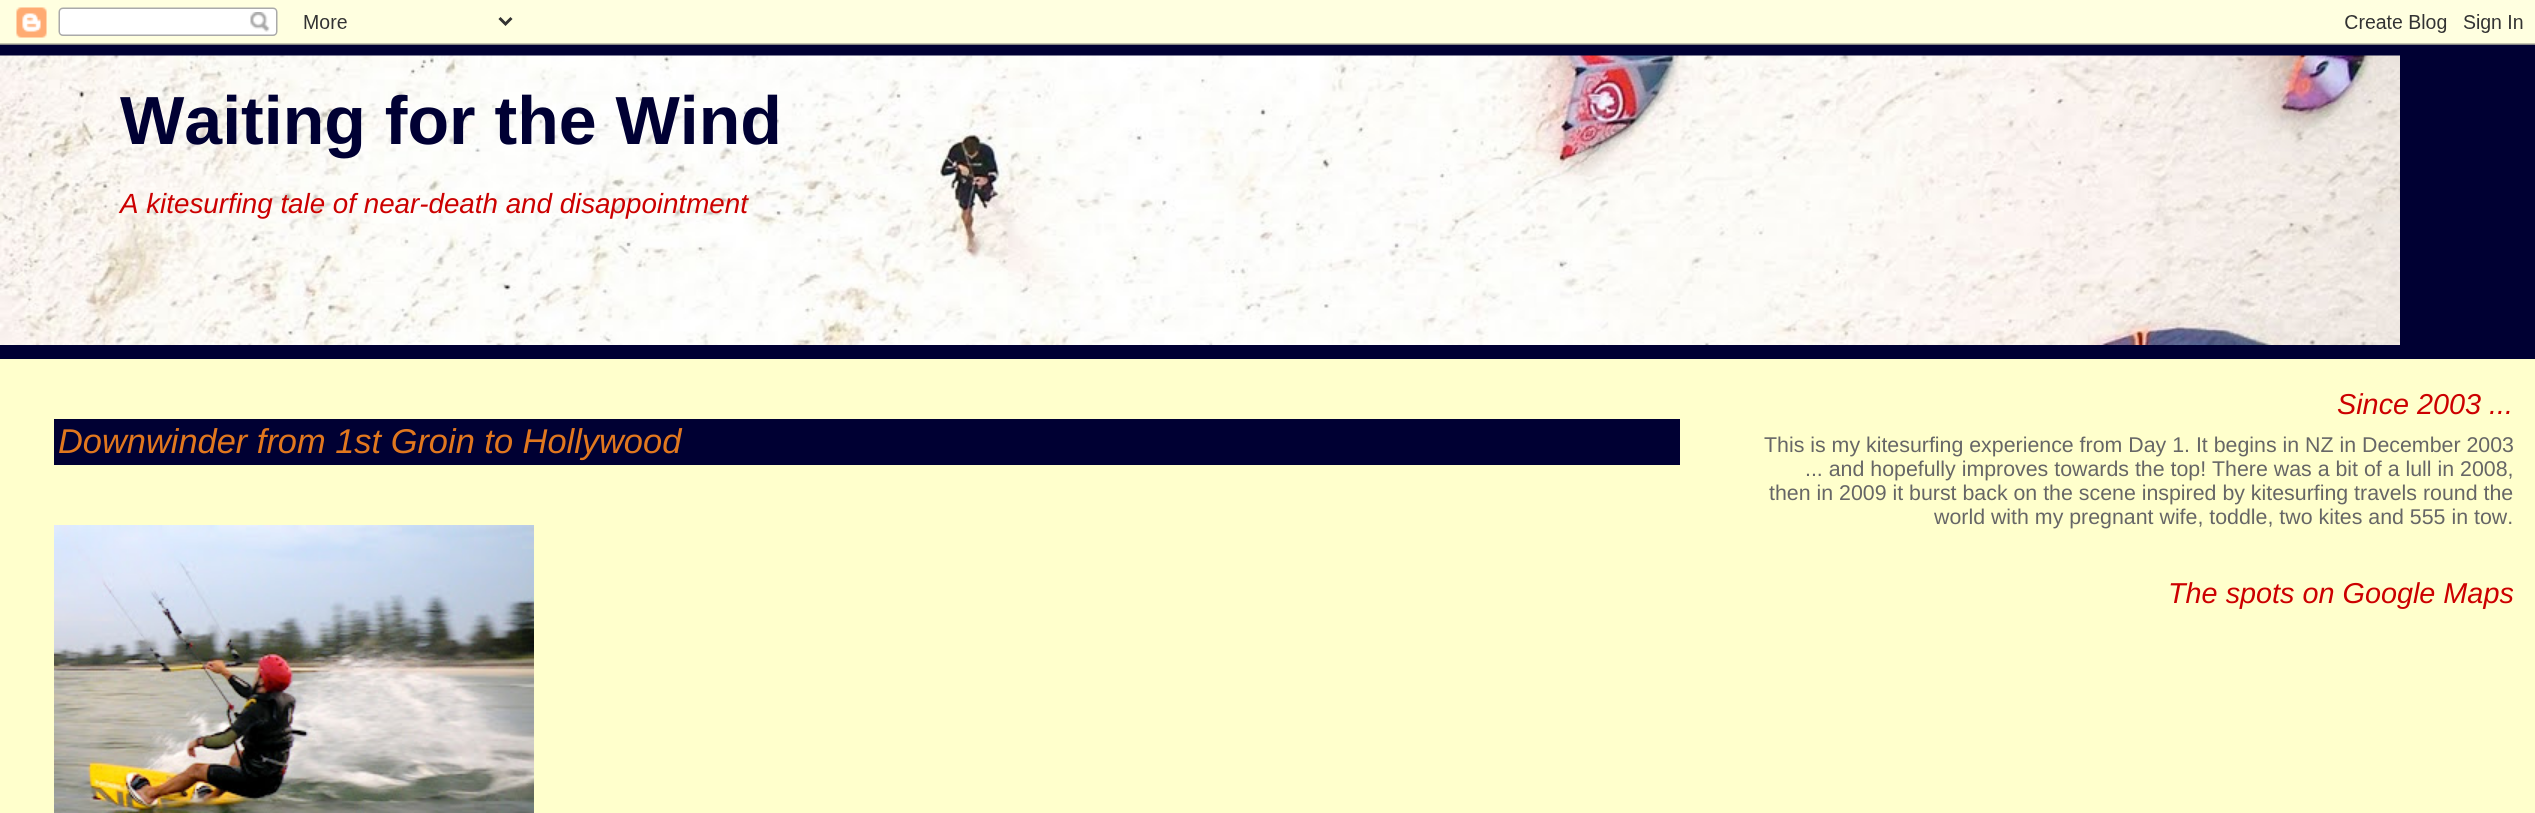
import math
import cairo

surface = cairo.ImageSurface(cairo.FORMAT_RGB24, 2535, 813)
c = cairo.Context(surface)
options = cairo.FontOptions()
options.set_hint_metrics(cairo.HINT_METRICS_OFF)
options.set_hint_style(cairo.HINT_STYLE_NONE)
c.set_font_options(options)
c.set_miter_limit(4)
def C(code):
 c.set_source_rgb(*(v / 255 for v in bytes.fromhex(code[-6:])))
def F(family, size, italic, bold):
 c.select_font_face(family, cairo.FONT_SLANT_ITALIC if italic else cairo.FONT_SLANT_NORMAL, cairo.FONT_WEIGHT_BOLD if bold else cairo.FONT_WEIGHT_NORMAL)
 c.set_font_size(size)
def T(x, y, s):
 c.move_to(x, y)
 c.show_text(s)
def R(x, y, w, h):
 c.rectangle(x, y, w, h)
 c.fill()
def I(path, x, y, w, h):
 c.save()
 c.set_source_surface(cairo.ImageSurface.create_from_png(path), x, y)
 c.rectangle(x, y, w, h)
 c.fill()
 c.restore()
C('ffffcc')
c.paint()
I('1.png',0,0,2535,45)
C('000033')
R(0,45,2535,314)
I('2.png',0,55,2400,290)
F('Liberation Sans',68.1,0,1)
T(120,144,'Waiting for the Wind')
F('Liberation Sans',27.75,1,0)
C('cc0000')
T(120,213,'A kitesurfing tale of near-death and disappointment')
C('000033')
R(54,419,1626,46)
F('Liberation Sans',34.4,1,0)
C('e1771e')
T(58,453,'Downwinder from 1st Groin to Hollywood')
I('3.png',54,525,480,288)
F('Liberation Sans',28.8,1,0)
C('cc0000')
T(2337,414,'Since 2003 ...')
F('Liberation Sans',21.35,0,0)
C('666666')
T(1764,452,'This is my kitesurfing experience from Day 1. It begins in NZ in December 2003')
T(1805,476,'... and hopefully improves towards the top! There was a bit of a lull in 2008,')
T(1769,500,'then in 2009 it burst back on the scene inspired by kitesurfing travels round the')
T(1934,524,'world with my pregnant wife, toddle, two kites and 555 in tow.')
F('Liberation Sans',28.8,1,0)
C('cc0000')
T(2168,603,'The spots on Google Maps')
surface.write_to_png('o.png')
